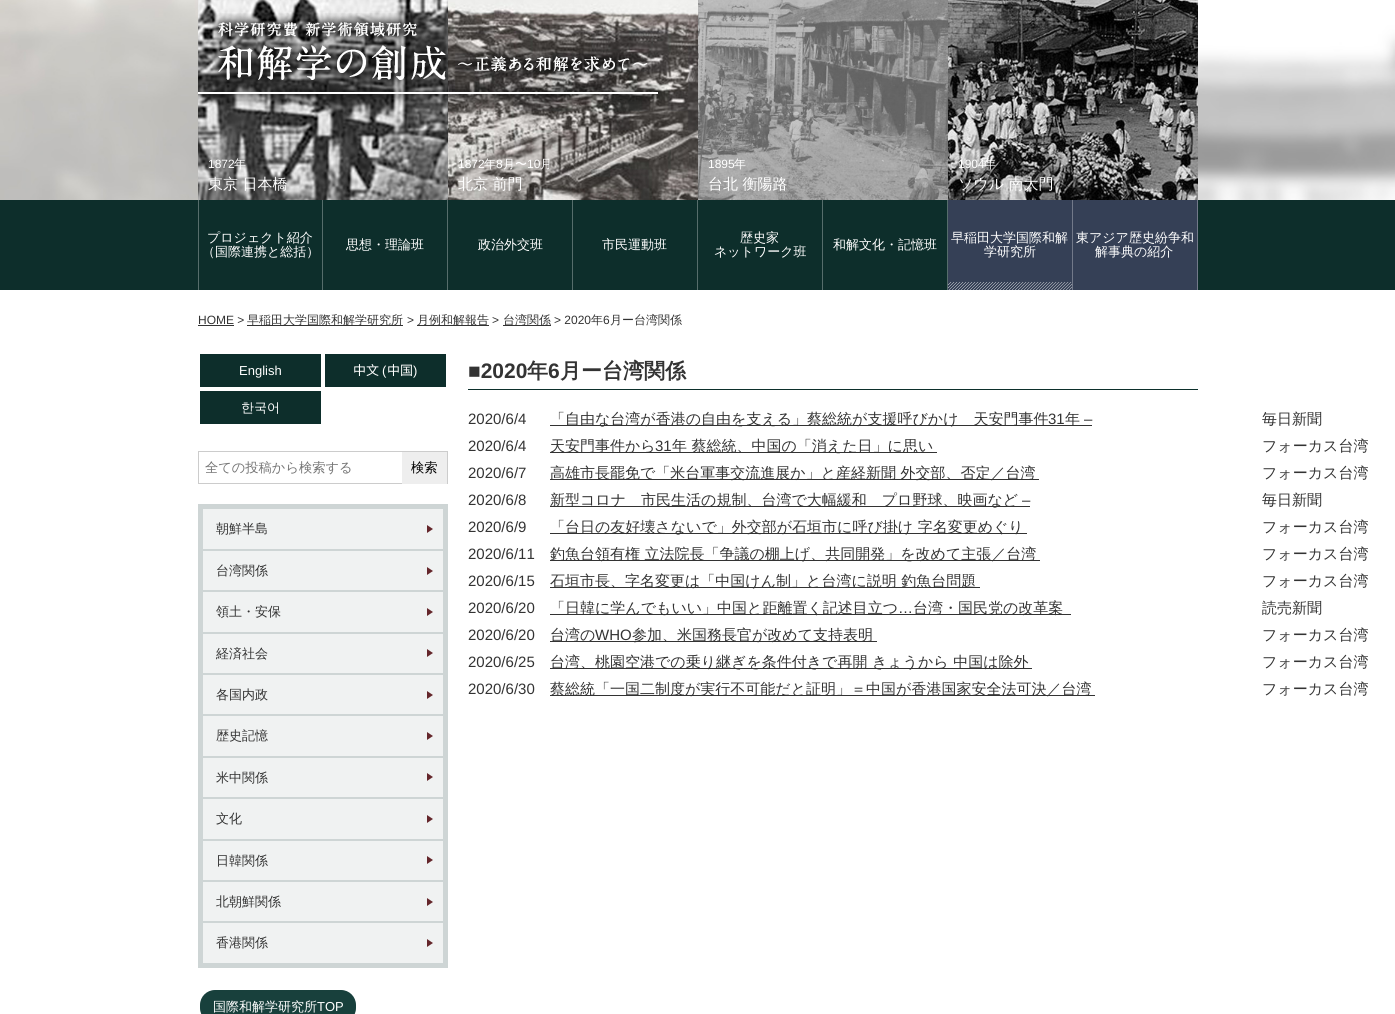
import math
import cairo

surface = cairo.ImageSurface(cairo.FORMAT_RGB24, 1395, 1014)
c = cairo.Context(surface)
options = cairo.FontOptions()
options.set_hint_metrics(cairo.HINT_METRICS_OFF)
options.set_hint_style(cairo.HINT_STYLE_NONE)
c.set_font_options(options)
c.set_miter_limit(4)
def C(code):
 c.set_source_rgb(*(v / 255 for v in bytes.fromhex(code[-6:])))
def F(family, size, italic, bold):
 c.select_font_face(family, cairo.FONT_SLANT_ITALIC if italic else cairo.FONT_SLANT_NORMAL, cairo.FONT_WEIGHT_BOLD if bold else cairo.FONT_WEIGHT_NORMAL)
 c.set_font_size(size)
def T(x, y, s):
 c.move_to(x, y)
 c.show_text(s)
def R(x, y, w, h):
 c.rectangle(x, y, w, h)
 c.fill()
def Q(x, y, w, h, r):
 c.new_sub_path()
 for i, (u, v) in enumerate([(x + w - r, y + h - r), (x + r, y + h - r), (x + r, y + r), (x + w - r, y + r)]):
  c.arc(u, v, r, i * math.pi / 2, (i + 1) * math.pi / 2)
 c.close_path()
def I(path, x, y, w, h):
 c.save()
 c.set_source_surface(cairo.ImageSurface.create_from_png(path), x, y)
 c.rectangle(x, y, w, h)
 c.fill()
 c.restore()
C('ffffff')
c.paint()
I('1.png',0,0,1395,200)
I('3.png',198,0,250,200)
I('4.png',448,0,250,200)
I('2.png',198,13,469,92)
F('Liberation Sans',12,0,0)
C('ffffff')
T(208,168,'1872')
F('WenQuanYi Zen Hei Medium',12,0,0)
T(234,168,'年')
F('WenQuanYi Zen Hei Medium',15,0,0)
T(208,189,'東京 日本橋')
F('Liberation Sans',12,0,0)
T(458,168,'1872')
F('WenQuanYi Zen Hei Medium',12,0,0)
T(484,168,'年')
F('Liberation Sans',12,0,0)
T(496,168,'8')
F('WenQuanYi Zen Hei Medium',12,0,0)
T(503,168,'月〜')
F('Liberation Sans',12,0,0)
T(527,168,'10')
F('WenQuanYi Zen Hei Medium',12,0,0)
T(540,168,'月')
F('WenQuanYi Zen Hei Medium',15,0,0)
T(458,189,'北京 前門')
I('5.png',698,0,250,200)
F('Liberation Sans',12,0,0)
T(708,168,'1895')
F('WenQuanYi Zen Hei Medium',12,0,0)
T(734,168,'年')
F('WenQuanYi Zen Hei Medium',15,0,0)
T(708,189,'台北 衡陽路')
I('6.png',948,0,250,200)
F('Liberation Sans',12,0,0)
T(958,168,'1904')
F('WenQuanYi Zen Hei Medium',12,0,0)
T(984,168,'年')
F('WenQuanYi Zen Hei Medium',15,0,0)
T(958,189,'ソウル 南大門')
C('0d2e2b')
R(0,200,1395,90)
C('566d6b')
R(322,200,1,90)
R(198,200,1,90)
F('WenQuanYi Zen Hei Medium',13,0,0)
C('ffffff')
T(207,242,'プロジェクト紹介')
T(202,256,'（国際連携と総括）')
C('566d6b')
R(447,200,1,90)
C('ffffff')
T(346,249,'思想・理論班')
C('566d6b')
R(572,200,1,90)
C('ffffff')
T(478,249,'政治外交班')
C('566d6b')
R(697,200,1,90)
C('ffffff')
T(602,249,'市民運動班')
C('566d6b')
R(822,200,1,90)
C('ffffff')
T(740,242,'歴史家')
T(714,256,'ネットワーク班')
C('566d6b')
R(947,200,1,90)
C('ffffff')
T(833,249,'和解文化・記憶班')
C('354056')
R(948,200,124,90)
C('727989')
R(1072,200,1,90)
C('ffffff')
T(951,242,'早稲田大学国際和解')
T(984,256,'学研究所')
I('7.png',948,282,124,8)
C('354056')
R(1073,200,124,90)
C('727989')
R(1197,200,1,90)
C('ffffff')
T(1076,242,'東アジア歴史紛争和')
T(1095,256,'解事典の紹介')
F('Liberation Sans',12,0,0)
C('333333')
T(198,324,'HOME >')
R(198,325,36,1)
R(247,325,156,1)
F('WenQuanYi Zen Hei Medium',12,0,0)
T(247,324,'早稲田大学国際和解学研究所')
F('Liberation Sans',12,0,0)
T(407,324,'>')
R(417,325,72,1)
F('WenQuanYi Zen Hei Medium',12,0,0)
T(417,324,'月例和解報告')
F('Liberation Sans',12,0,0)
T(492,324,'>')
R(503,325,48,1)
F('WenQuanYi Zen Hei Medium',12,0,0)
T(503,324,'台湾関係')
F('Liberation Sans',12,0,0)
T(554,324,'> 2020')
F('WenQuanYi Zen Hei Medium',12,0,0)
T(591,324,'年')
F('Liberation Sans',12,0,0)
T(603,324,'6')
F('WenQuanYi Zen Hei Medium',12,0,0)
T(610,324,'月ー台湾関係')
C('0d2e2b')
R(200,354,121,33)
F('Liberation Sans',13,0,0)
C('ffffff')
T(239,375,'English')
C('0d2e2b')
R(325,354,121,33)
F('Noto Sans CJK SC',13,0,0)
C('ffffff')
T(353,375,'中文')
F('Liberation Sans',13,0,0)
T(382,375,'(')
F('Noto Sans CJK SC',13,0,0)
T(387,375,'中国')
F('Liberation Sans',13,0,0)
T(413,375,')')
C('0d2e2b')
R(200,391,121,33)
F('WenQuanYi Zen Hei Medium',13,0,0)
C('ffffff')
T(241,412,'한국어')
c.rectangle(198.5,451.5,249,32)
C('cccccc')
c.set_line_width(1)
c.stroke()
F('WenQuanYi Zen Hei Medium',13.25,0,0)
C('757575')
T(205,472,'全ての投稿から検索する')
C('eeeeee')
R(402,452,45,32)
C('000000')
T(411,472,'検索')
C('ced5d5')
R(198,504,250,464)
C('f0f2f2')
R(203,509,240,40)
F('WenQuanYi Zen Hei Medium',13,0,0)
C('333333')
T(216,533,'朝鮮半島')
I('8.png',427,525,6,8)
C('f0f2f2')
R(203,551,240,39)
C('333333')
T(216,575,'台湾関係')
I('8.png',427,567,6,8)
C('f0f2f2')
R(203,592,240,40)
C('333333')
T(216,616,'領土・安保')
I('8.png',427,608,6,8)
C('f0f2f2')
R(203,634,240,39)
C('333333')
T(216,658,'経済社会')
I('8.png',427,649,6,8)
C('f0f2f2')
R(203,675,240,39)
C('333333')
T(216,699,'各国内政')
I('8.png',427,691,6,8)
C('f0f2f2')
R(203,716,240,40)
C('333333')
T(216,740,'歴史記憶')
I('8.png',427,732,6,8)
C('f0f2f2')
R(203,758,240,39)
C('333333')
T(216,782,'米中関係')
I('8.png',427,773,6,8)
C('f0f2f2')
R(203,799,240,40)
C('333333')
T(216,823,'文化')
I('8.png',427,815,6,8)
C('f0f2f2')
R(203,841,240,39)
C('333333')
T(216,865,'日韓関係')
I('8.png',427,856,6,8)
C('f0f2f2')
R(203,882,240,39)
C('333333')
T(216,906,'北朝鮮関係')
I('8.png',427,898,6,8)
C('f0f2f2')
R(203,923,240,40)
C('333333')
T(216,947,'香港関係')
I('8.png',427,939,6,8)
C('18403c')
Q(200,990,156,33,15)
c.fill()
C('ffffff')
T(213,1011,'国際和解学研究所')
F('Liberation Sans',13,0,0)
T(317,1011,'TOP')
C('0c2f2b')
R(468,389,730,1)
F('Liberation Sans',21,0,1)
C('333333')
T(468,378,'■2020')
F('WenQuanYi Zen Hei',21,0,1)
T(527,378,'年')
F('Liberation Sans',21,0,1)
T(548,378,'6')
F('WenQuanYi Zen Hei',21,0,1)
T(560,378,'月ー台湾関係')
F('Liberation Sans',15,0,0)
T(468,424,'2020/6/4')
R(550,425,542,1)
F('WenQuanYi Zen Hei Medium',15,0,0)
T(550,424,'「自由な台湾が香港の自由を支える」蔡総統が支援呼びかけ　天安門事件')
F('Liberation Sans',15,0,0)
T(1048,424,'31')
F('WenQuanYi Zen Hei Medium',15,0,0)
T(1065,424,'年')
F('Liberation Sans',15,0,0)
T(1084,424,'–')
F('WenQuanYi Zen Hei Medium',15,0,0)
T(1262,424,'毎日新聞')
F('Liberation Sans',15,0,0)
T(468,451,'2020/6/4')
R(550,452,387,1)
F('WenQuanYi Zen Hei Medium',15,0,0)
T(550,451,'天安門事件から')
F('Liberation Sans',15,0,0)
T(655,451,'31')
F('WenQuanYi Zen Hei Medium',15,0,0)
T(672,451,'年 蔡総統、中国の「消えた日」に思い')
T(1262,451,'フォーカス台湾')
F('Liberation Sans',15,0,0)
T(468,478,'2020/6/7')
R(550,479,489,1)
F('WenQuanYi Zen Hei Medium',15,0,0)
T(550,478,'高雄市長罷免で「米台軍事交流進展か」と産経新聞 外交部、否定／台湾')
T(1262,478,'フォーカス台湾')
F('Liberation Sans',15,0,0)
T(468,505,'2020/6/8')
R(550,506,480,1)
F('WenQuanYi Zen Hei Medium',15,0,0)
T(550,505,'新型コロナ　市民生活の規制、台湾で大幅緩和　プロ野球、映画など')
F('Liberation Sans',15,0,0)
T(1022,505,'–')
F('WenQuanYi Zen Hei Medium',15,0,0)
T(1262,505,'毎日新聞')
F('Liberation Sans',15,0,0)
T(468,532,'2020/6/9')
R(550,533,477,1)
F('WenQuanYi Zen Hei Medium',15,0,0)
T(550,532,'「台日の友好壊さないで」外交部が石垣市に呼び掛け 字名変更めぐり')
T(1262,532,'フォーカス台湾')
F('Liberation Sans',15,0,0)
T(468,559,'2020/6/11')
R(550,560,490,1)
F('WenQuanYi Zen Hei Medium',15,0,0)
T(550,559,'釣魚台領有権 立法院長「争議の棚上げ、共同開発」を改めて主張／台湾')
T(1262,559,'フォーカス台湾')
F('Liberation Sans',15,0,0)
T(468,586,'2020/6/15')
R(550,587,430,1)
F('WenQuanYi Zen Hei Medium',15,0,0)
T(550,586,'石垣市長、字名変更は「中国けん制」と台湾に説明 釣魚台問題')
T(1262,586,'フォーカス台湾')
F('Liberation Sans',15,0,0)
T(468,613,'2020/6/20')
R(550,614,521,1)
F('WenQuanYi Zen Hei Medium',15,0,0)
T(550,613,'「日韓に学んでもいい」中国と距離置く記述目立つ')
F('Liberation Sans',15,0,0)
T(898,613,'…')
F('WenQuanYi Zen Hei Medium',15,0,0)
T(913,613,'台湾・国民党の改革案')
T(1262,613,'読売新聞')
F('Liberation Sans',15,0,0)
T(468,640,'2020/6/20')
R(550,641,327,1)
F('WenQuanYi Zen Hei Medium',15,0,0)
T(550,640,'台湾の')
F('Liberation Sans',15,0,0)
T(595,640,'WHO')
F('WenQuanYi Zen Hei Medium',15,0,0)
T(632,640,'参加、米国務長官が改めて支持表明')
T(1262,640,'フォーカス台湾')
F('Liberation Sans',15,0,0)
T(468,667,'2020/6/25')
R(550,668,482,1)
F('WenQuanYi Zen Hei Medium',15,0,0)
T(550,667,'台湾、桃園空港での乗り継ぎを条件付きで再開 きょうから 中国は除外')
T(1262,667,'フォーカス台湾')
F('Liberation Sans',15,0,0)
T(468,694,'2020/6/30')
R(550,695,545,1)
F('WenQuanYi Zen Hei Medium',15,0,0)
T(550,694,'蔡総統「一国二制度が実行不可能だと証明」＝中国が香港国家安全法可決／台湾')
T(1262,694,'フォーカス台湾')
surface.write_to_png('o.png')
